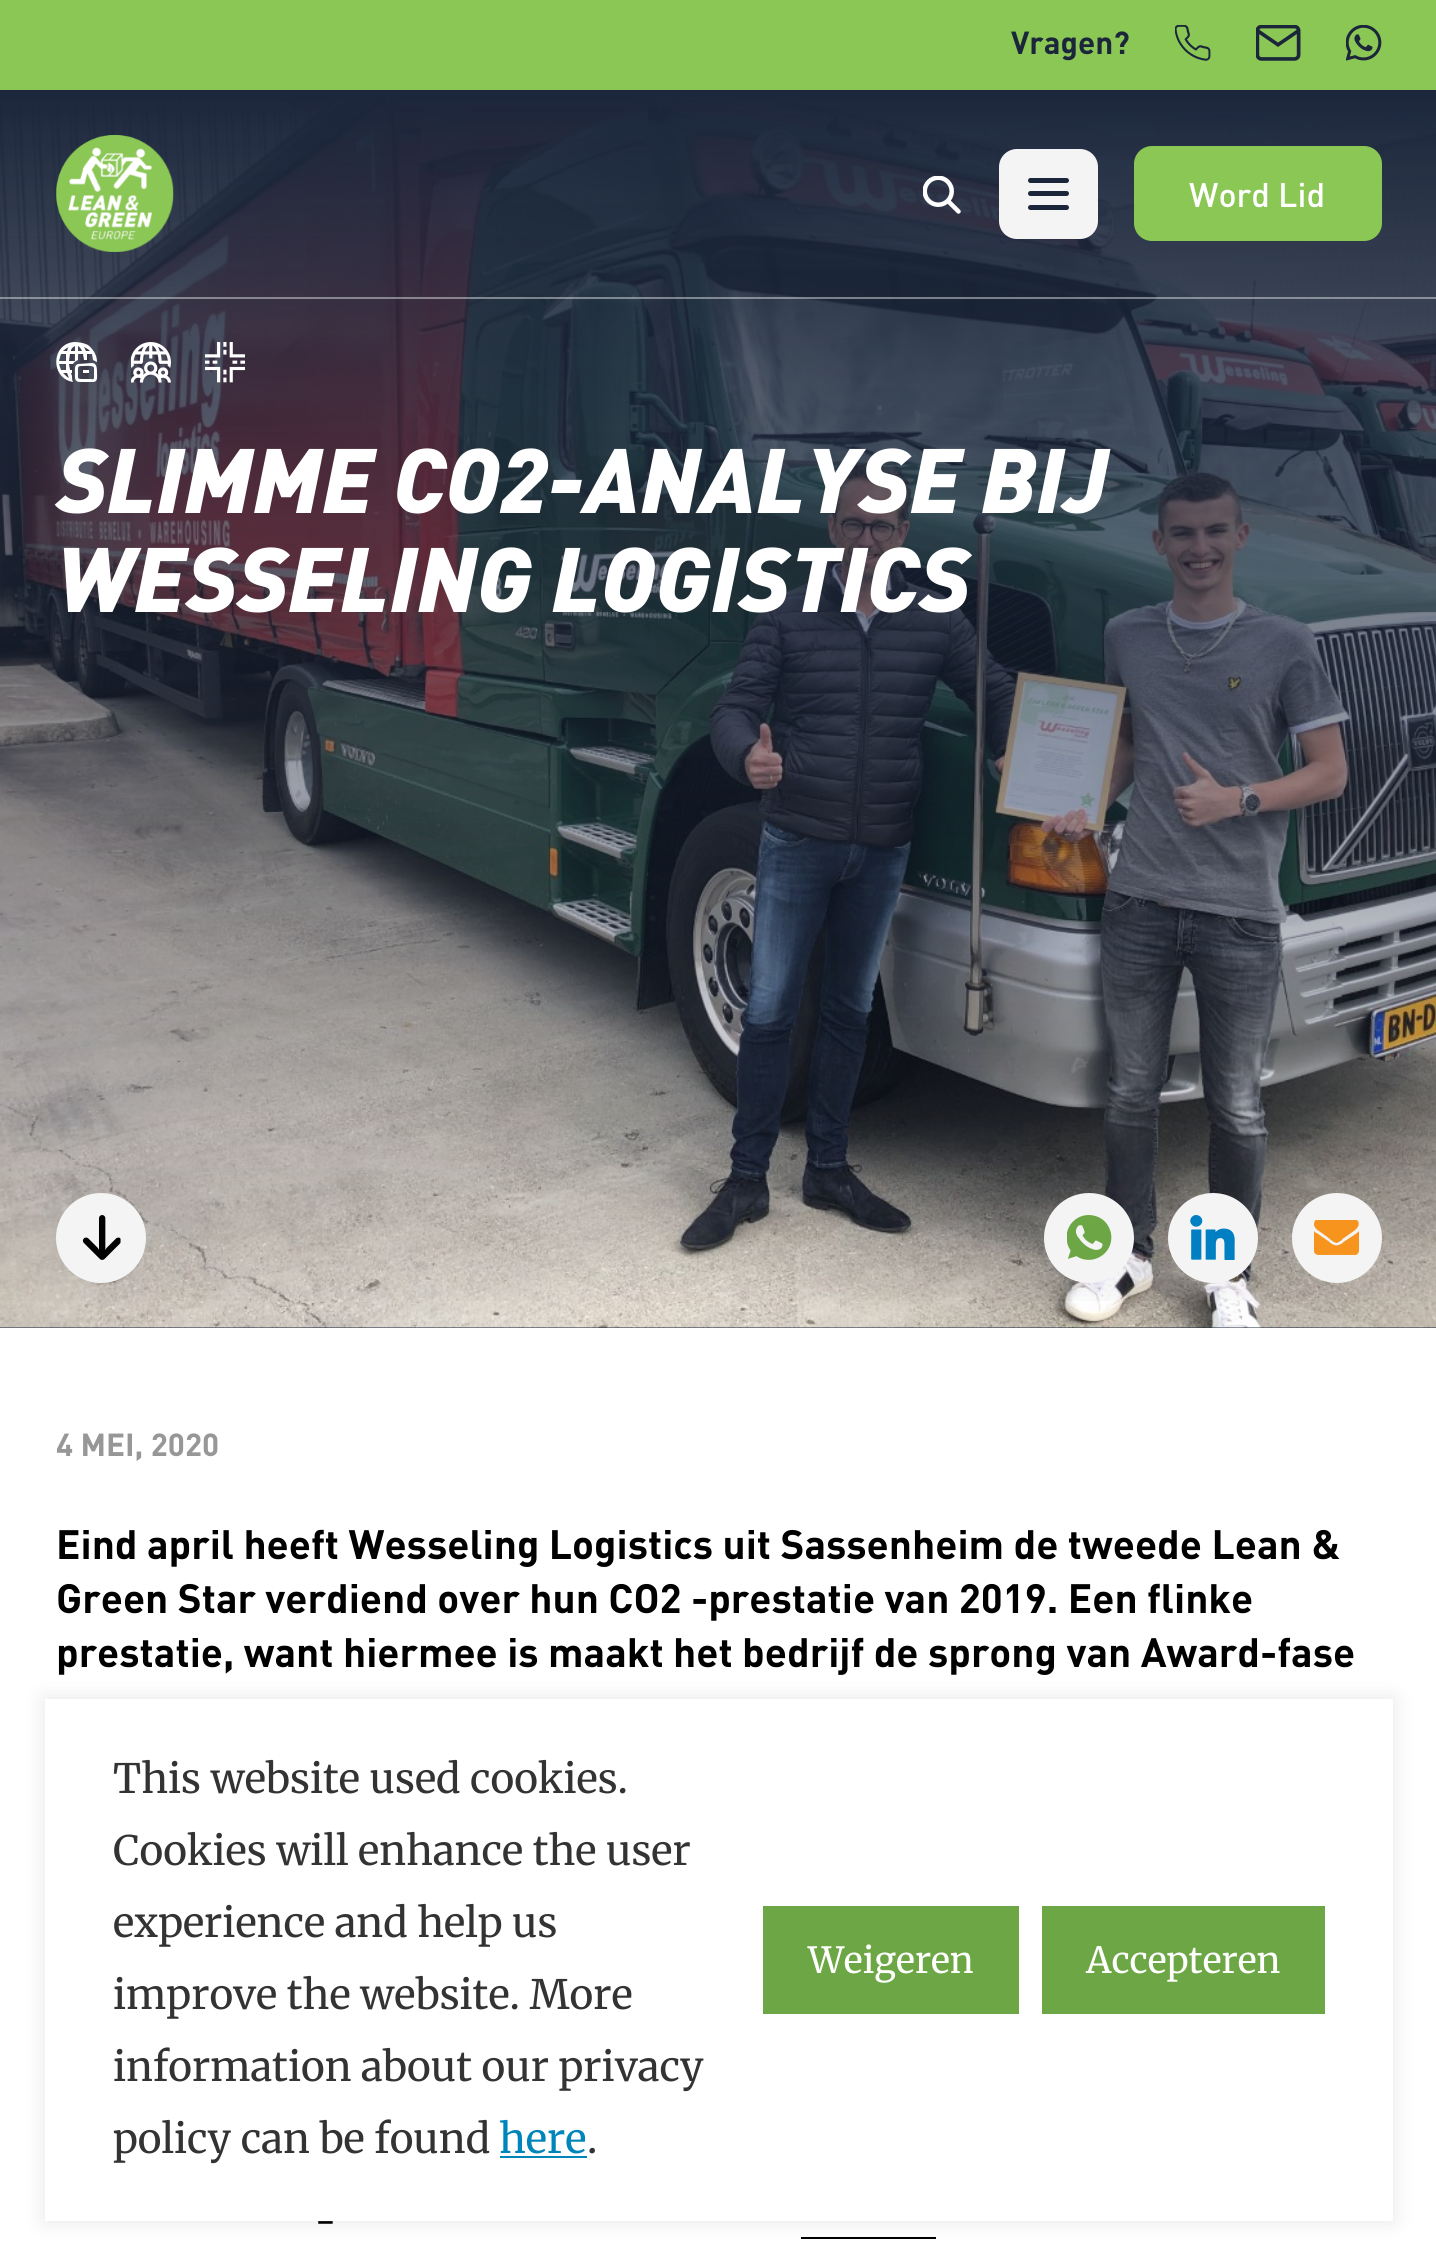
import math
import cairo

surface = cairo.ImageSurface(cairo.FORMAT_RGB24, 1436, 2265)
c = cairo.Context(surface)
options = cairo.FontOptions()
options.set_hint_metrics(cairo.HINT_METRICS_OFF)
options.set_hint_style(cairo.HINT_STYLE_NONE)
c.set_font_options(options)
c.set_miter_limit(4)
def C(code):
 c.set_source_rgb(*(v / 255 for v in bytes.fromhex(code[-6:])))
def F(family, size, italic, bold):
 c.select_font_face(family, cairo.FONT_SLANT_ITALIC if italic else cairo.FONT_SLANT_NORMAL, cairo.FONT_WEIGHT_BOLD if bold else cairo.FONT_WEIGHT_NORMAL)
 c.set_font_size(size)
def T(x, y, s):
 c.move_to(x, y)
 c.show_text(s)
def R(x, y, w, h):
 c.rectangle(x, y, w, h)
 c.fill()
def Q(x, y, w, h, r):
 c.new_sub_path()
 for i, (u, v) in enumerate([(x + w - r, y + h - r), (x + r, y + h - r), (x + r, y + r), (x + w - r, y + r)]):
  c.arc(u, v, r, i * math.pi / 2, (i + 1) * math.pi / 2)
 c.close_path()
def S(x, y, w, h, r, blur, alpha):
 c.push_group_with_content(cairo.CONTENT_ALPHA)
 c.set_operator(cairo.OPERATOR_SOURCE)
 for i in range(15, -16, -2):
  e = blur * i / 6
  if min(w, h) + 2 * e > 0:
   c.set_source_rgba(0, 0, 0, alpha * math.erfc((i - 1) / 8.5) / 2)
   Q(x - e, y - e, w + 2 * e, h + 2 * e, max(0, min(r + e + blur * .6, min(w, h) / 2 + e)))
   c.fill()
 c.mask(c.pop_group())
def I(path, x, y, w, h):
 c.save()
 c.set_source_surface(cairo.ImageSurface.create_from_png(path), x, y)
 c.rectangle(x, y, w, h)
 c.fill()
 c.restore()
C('ffffff')
c.paint()
C('1b263b')
R(0,1327,1436,1)
I('6.png',0,97,1436,1231)
gradient = cairo.LinearGradient(719,1328,719,90)
gradient.add_color_stop_rgba(0,0.106,0.149,0.231,0)
gradient.add_color_stop_rgba(1,0.106,0.149,0.231,1)
c.set_source(gradient)
R(0,90,1436,1211)
c.set_source_rgba(0.859,0.871,0.871,0.5)
R(0,297,1436,2)
C('8bc755')
R(0,0,1436,90)
F('DIN',31.5,0,1)
C('1b263b')
T(1011,54,'Vragen?')
I('1.png',1175,25,36,36)
I('2.png',1256,25,45,36)
I('3.png',1346,25,36,36)
I('4.png',56,135,118,117)
I('5.png',923,176,38,38)
C('f4f4f4')
Q(1000,150,97,88,17)
c.fill_preserve()
c.stroke()
C('1b263b')
Q(1028,178,41,5,2.5)
c.fill()
Q(1028,191,41,5,2.5)
c.fill()
Q(1028,205,41,5,2.5)
c.fill()
C('8bc755')
Q(1135,147,246,93,17)
c.fill_preserve()
c.stroke()
F('DIN Medium',33.75,0,0)
C('ffffff')
T(1189,207,'Word Lid')
c.set_fill_rule(cairo.FILL_RULE_EVEN_ODD)
c.new_path()
c.move_to(78,360)
c.line_to(78,354)
c.line_to(83,354)
c.line_to(84,360)
c.line_to(87,360)
c.line_to(87,354)
c.line_to(92,354)
c.line_to(93,360)
c.line_to(97,362)
c.curve_to(97,355,93,349,88,345)
c.curve_to(84,343,79,342,74,342)
c.curve_to(51,344,50,378,73,382)
c.curve_to(72,380,72,378,72,376)
c.line_to(71,373)
c.line_to(72,373)
c.line_to(72,370)
c.line_to(70,370)
c.line_to(69,364)
c.line_to(73,364)
c.curve_to(74,362,76,361,78,360)
c.close_path()
c.move_to(78,346)
c.curve_to(80,347,81,349,82,351)
c.line_to(78,351)
c.close_path()
c.move_to(71,350)
c.curve_to(72,348,73,347,75,346)
c.line_to(75,351)
c.line_to(71,351)
c.close_path()
c.move_to(90,351)
c.line_to(86,351)
c.line_to(84,347)
c.curve_to(86,348,88,349,90,351)
c.close_path()
c.move_to(68,348)
c.line_to(67,351)
c.line_to(63,351)
c.curve_to(65,349,67,348,69,347)
c.close_path()
c.move_to(61,354)
c.line_to(66,354)
c.line_to(66,361)
c.line_to(59,361)
c.close_path()
c.move_to(70,354)
c.line_to(75,354)
c.line_to(75,361)
c.line_to(69,361)
c.close_path()
c.move_to(92,363)
c.line_to(78,364)
c.curve_to(74,365,75,370,75,373)
c.curve_to(75,377,74,382,80,382)
c.line_to(94,382)
c.curve_to(98,381,97,376,97,373)
c.curve_to(97,369,97,363,92,363)
c.close_path()
c.move_to(61,370)
c.line_to(59,364)
c.line_to(66,364)
c.line_to(66,370)
c.close_path()
c.move_to(94,378)
c.curve_to(94,380,91,379,90,379)
c.line_to(82,379)
c.curve_to(77,379,78,378,78,373)
c.curve_to(78,366,77,366,84,366)
c.curve_to(85,366,94,365,94,368)
c.close_path()
c.move_to(83,370)
c.line_to(89,370)
c.line_to(89,373)
c.line_to(83,373)
c.close_path()
c.move_to(69,378)
c.curve_to(67,377,65,375,63,373)
c.line_to(67,373)
c.close_path()
c.fill()
I('7.png',131,342,40,41)
I('8.png',205,342,40,41)
F('DIN Black',90,1,0)
T(56,513,'SLIMME CO2-ANALYSE BIJ')
T(56,612,'WESSELING LOGISTICS')
C('f4f4f4')
c.new_path()
c.arc(101,1238,45,0,2 * math.pi)
c.fill()
I('9.png',82,1215,39,45)
c.arc(1089,1238,45,0,2 * math.pi)
c.fill()
I('10.png',1067,1215,45,45)
c.arc(1213,1238,45,0,2 * math.pi)
c.fill()
I('11.png',1190,1215,45,45)
c.arc(1337,1238,45,0,2 * math.pi)
c.fill()
I('12.png',1314,1220,45,35)
F('DIN',31.5,0,1)
C('979797')
T(56,1456,'4 MEI, 2020')
F('DIN',40.5,0,1)
C('000000')
T(56,1559,'Eind april heeft Wesseling Logistics uit Sassenheim de tweede Lean &')
T(56,1613,'Green Star verdiend over hun CO2 -prestatie van 2019. Een flinke')
T(56,1667,'prestatie, want hiermee is maakt het bedrijf de sprong van Award-fase')
F('Merriweather',36,0,0)
T(315,2234,'-')
R(801,2237,135,2)
C('000000')
S(45,1699,1348,522,0,11,.1)
C('ffffff')
R(45,1699,1348,522)
F('Merriweather',40.5,0,0)
C('333333')
T(113,1793,'This website used cookies.')
T(113,1865,'Cookies will enhance the user')
T(113,1937,'experience and help us')
T(113,2009,'improve the website. More')
T(113,2081,'information about our privacy')
T(113,2153,'policy can be found')
C('0085ba')
T(499,2153,'here')
R(500,2156,87,2)
C('333333')
T(587,2153,'.')
C('6da745')
R(763,1906,256,108)
F('Merriweather',36,0,0)
C('ffffff')
T(808,1973,'Weigeren')
C('6da745')
R(1042,1906,283,108)
C('ffffff')
T(1086,1973,'Accepteren')
surface.write_to_png('o.png')
